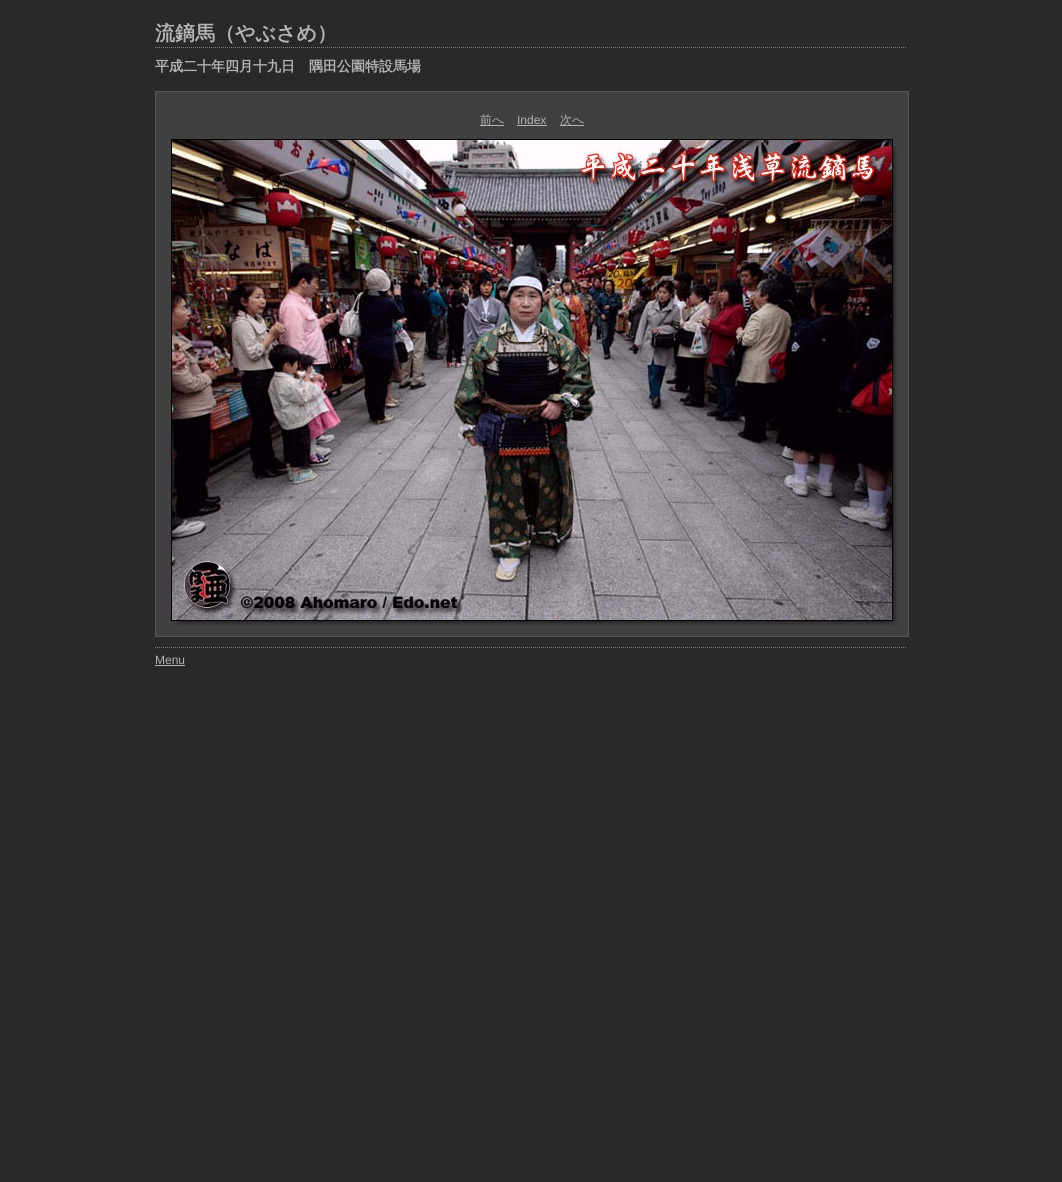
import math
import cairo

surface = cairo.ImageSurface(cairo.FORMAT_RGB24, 1062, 1182)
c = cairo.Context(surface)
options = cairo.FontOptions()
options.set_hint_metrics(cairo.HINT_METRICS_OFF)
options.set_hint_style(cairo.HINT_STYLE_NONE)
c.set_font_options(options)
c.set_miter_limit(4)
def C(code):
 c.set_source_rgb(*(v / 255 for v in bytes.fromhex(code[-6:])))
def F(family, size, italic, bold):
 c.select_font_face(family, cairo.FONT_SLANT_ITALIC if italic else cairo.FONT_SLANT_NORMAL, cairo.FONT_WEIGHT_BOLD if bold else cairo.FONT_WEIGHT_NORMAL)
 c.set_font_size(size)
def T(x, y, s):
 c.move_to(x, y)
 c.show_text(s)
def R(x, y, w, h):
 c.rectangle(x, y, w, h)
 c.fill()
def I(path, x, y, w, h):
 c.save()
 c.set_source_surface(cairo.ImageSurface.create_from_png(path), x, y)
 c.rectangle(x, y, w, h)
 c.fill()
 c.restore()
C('292929')
c.paint()
c.new_path()
c.move_to(155,47.5)
c.line_to(907,47.5)
C('7f7f7f')
c.set_line_width(1)
c.set_dash([1,1])
c.stroke()
F('WenQuanYi Zen Hei',20,0,1)
C('b3b3b3')
T(155,40,'流鏑馬（やぶさめ）')
F('WenQuanYi Zen Hei',14,0,1)
T(155,71,'平成二十年四月十九日　隅田公園特設馬場')
c.new_path()
c.move_to(155,647.5)
c.line_to(907,647.5)
C('7f7f7f')
c.stroke()
C('404040')
c.rectangle(155.5,91.5,753,545)
c.fill_preserve()
C('565656')
c.set_dash([])
c.stroke()
C('b3b3b3')
R(480,125,24,1)
F('WenQuanYi Zen Hei Medium',12,0,0)
T(480,124,'前へ')
F('Liberation Sans',12,0,0)
T(517,124,'Index')
R(517,125,30,1)
R(560,125,24,1)
F('WenQuanYi Zen Hei Medium',12,0,0)
T(560,124,'次へ')
I('1.png',181,152,717,474)
c.rectangle(171.5,139.5,721,481)
C('000000')
c.stroke()
I('2.png',172,140,720,480)
I('3.png',893,146,4,6)
I('4.png',175,621,6,4)
F('Liberation Sans',12,0,0)
C('b3b3b3')
T(155,664,'Menu')
R(155,665,30,1)
surface.write_to_png('o.png')
